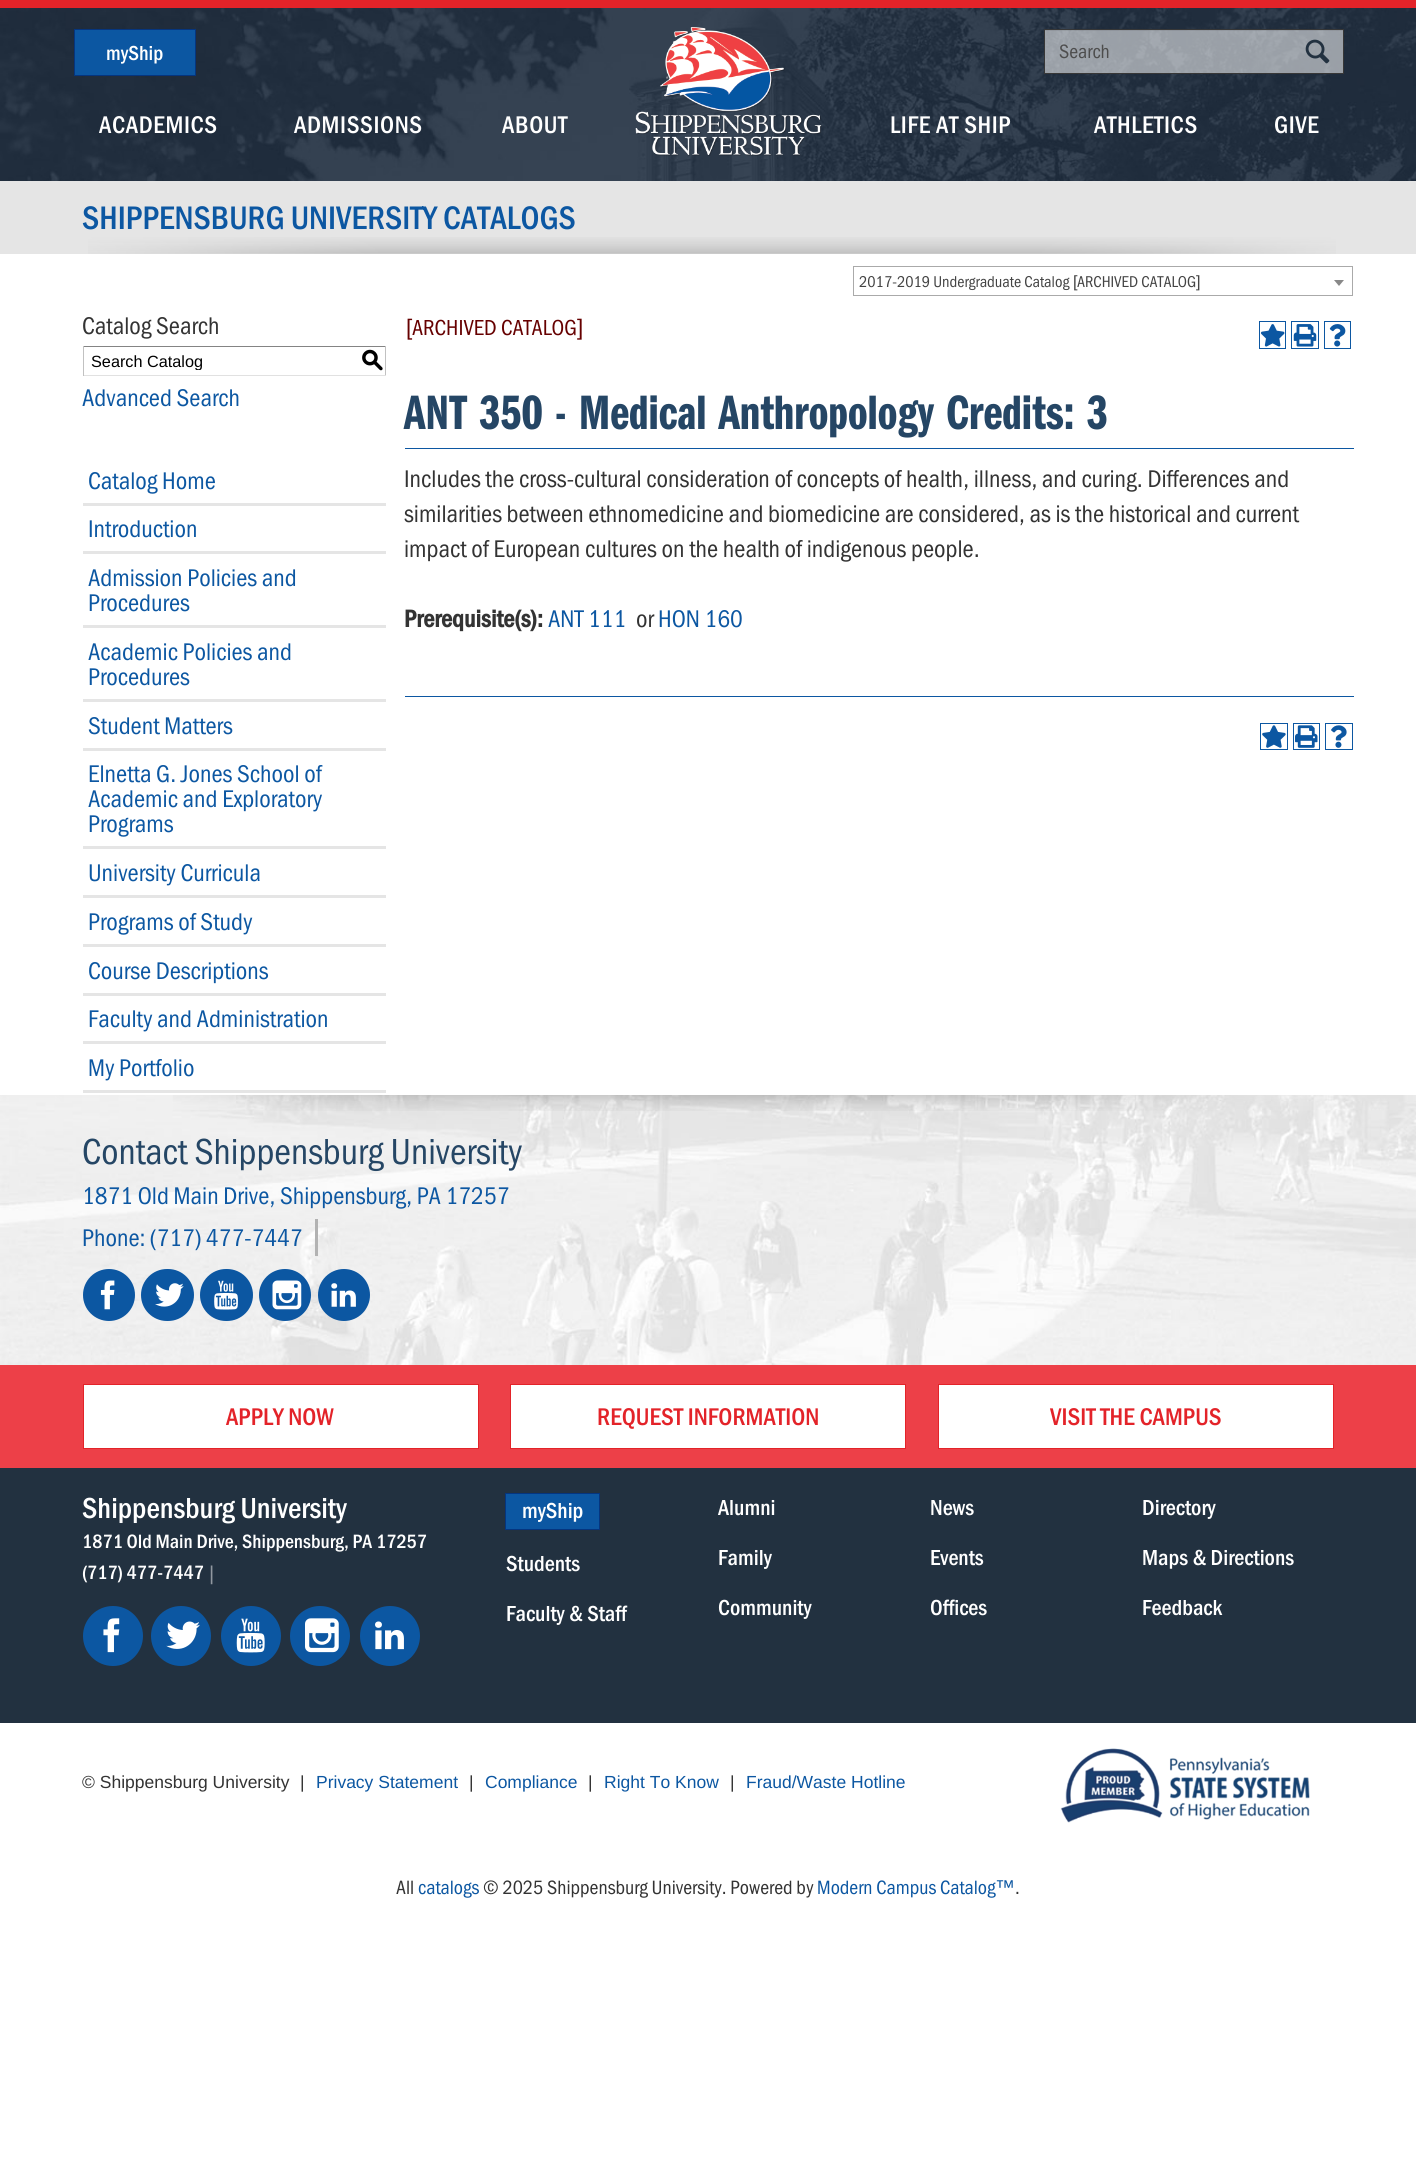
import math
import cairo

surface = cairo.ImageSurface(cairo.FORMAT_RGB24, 1416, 2166)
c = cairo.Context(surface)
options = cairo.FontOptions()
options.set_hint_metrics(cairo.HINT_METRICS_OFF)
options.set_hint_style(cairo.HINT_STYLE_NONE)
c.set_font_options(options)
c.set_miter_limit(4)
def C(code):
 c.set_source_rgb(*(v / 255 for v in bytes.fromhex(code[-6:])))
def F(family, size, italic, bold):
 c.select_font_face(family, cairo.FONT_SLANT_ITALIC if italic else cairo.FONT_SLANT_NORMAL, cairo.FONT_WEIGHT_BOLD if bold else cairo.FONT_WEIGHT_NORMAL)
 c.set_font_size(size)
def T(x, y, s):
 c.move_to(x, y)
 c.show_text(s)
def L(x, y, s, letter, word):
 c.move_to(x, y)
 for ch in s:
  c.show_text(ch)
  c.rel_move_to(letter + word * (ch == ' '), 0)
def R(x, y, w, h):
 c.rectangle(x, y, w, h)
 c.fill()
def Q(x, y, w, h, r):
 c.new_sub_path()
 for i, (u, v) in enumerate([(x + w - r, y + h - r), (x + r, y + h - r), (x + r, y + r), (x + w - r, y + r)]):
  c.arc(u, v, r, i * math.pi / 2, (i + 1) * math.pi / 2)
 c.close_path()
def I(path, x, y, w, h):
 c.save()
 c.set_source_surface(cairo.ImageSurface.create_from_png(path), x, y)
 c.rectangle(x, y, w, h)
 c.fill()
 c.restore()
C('ffffff')
c.paint()
I('1.png',0,8,1416,173)
C('e32329')
R(0,0,1416,8)
c.set_source_rgba(1,1,1,0.55)
R(1045,30,298,43)
c.set_source_rgba(0,0,0,0.07)
R(1045,30,298,1)
c.rectangle(1044.5,29.5,299,44)
C('373737')
c.set_line_width(1)
c.stroke()
F('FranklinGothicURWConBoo',20,0,0)
C('4d4d4d')
T(1059,58,'Search')
I('2.png',1305,39,25,25)
C('0c57a2')
c.rectangle(74.5,29.5,121,46)
c.fill_preserve()
C('05357f')
c.stroke()
F('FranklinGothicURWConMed',21,0,0)
C('ffffff')
T(106,60,'myShip')
F('FranklinGothicURWConMed',25,0,0)
L(99,133,'ACADEMICS',.6,0)
L(294,133,'ADMISSIONS',.6,0)
L(502,133,'ABOUT',.6,0)
I('3.png',635,27,187,129)
L(890,133,'LIFE AT SHIP',.6,0)
L(1094,133,'ATHLETICS',.6,0)
L(1274,133,'GIVE',.6,0)
C('e5e5e5')
R(0,181,1416,73)
I('4.png',88,237,1248,17)
F('FranklinGothicURWConMed',33.75,0,0)
C('0c57a2')
T(82,229,'SHIPPENSBURG UNIVERSITY CATALOGS')
c.rectangle(853.5,266.5,499,29)
C('aaaaaa')
c.stroke()
F('FranklinGothicURWConBoo',16.25,0,0)
C('444444')
T(859,287,'2017-2019 Undergraduate Catalog')
F('Liberation Sans',16.25,0,0)
T(1073,287,'[')
F('FranklinGothicURWConBoo',16.25,0,0)
T(1077,287,'ARCHIVED CATALOG')
F('Liberation Sans',16.25,0,0)
T(1196,287,']')
C('888888')
c.new_path()
c.move_to(1334,280)
c.line_to(1344,280)
c.line_to(1339,286)
c.close_path()
c.fill()
F('FranklinGothicURWConBoo',25,0,0)
C('333333')
T(82,334,'Catalog Search')
C('848484')
R(83,346,303,1)
C('c1c1c1')
R(385,346,1,30)
C('e1e1e1')
R(83,375,303,1)
C('c1c1c1')
R(83,346,1,30)
c.save()
c.rectangle(91,351,264,19)
c.clip()
F('Liberation Sans',16.25,0,0)
C('000000')
T(91,367,'Search Catalog')
c.restore()
F('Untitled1 Medium',22.5,0,0)
C('000000')
T(361,367,'S')
F('FranklinGothicURWConBoo',25,0,0)
C('0c57a2')
T(82,406,'Advanced Search')
C('e5e5e5')
R(83,503,303,3)
C('0c57a2')
T(88,489,'Catalog Home')
C('e5e5e5')
R(83,551,303,3)
C('0c57a2')
T(88,537,'Introduction')
C('e5e5e5')
R(83,625,303,3)
C('0c57a2')
T(88,586,'Admission Policies and')
T(88,611,'Procedures')
C('e5e5e5')
R(83,699,303,3)
C('0c57a2')
T(88,660,'Academic Policies and')
T(88,685,'Procedures')
C('e5e5e5')
R(83,748,303,3)
C('0c57a2')
T(88,734,'Student Matters')
C('e5e5e5')
R(83,846,303,3)
C('0c57a2')
T(88,782,'Elnetta G. Jones School of')
T(88,807,'Academic and Exploratory')
T(88,832,'Programs')
C('e5e5e5')
R(83,895,303,3)
C('0c57a2')
T(88,881,'University Curricula')
C('e5e5e5')
R(83,944,303,3)
C('0c57a2')
T(88,930,'Programs of Study')
C('e5e5e5')
R(83,993,303,3)
C('0c57a2')
T(88,979,'Course Descriptions')
C('e5e5e5')
R(83,1041,303,3)
C('0c57a2')
T(88,1027,'Faculty and Administration')
C('e5e5e5')
R(83,1090,303,3)
C('0c57a2')
T(88,1076,'My Portfolio')
F('Liberation Sans',22.5,0,0)
C('660000')
T(406,335,'[')
F('FranklinGothicURWConBoo',22.5,0,0)
T(412,335,'ARCHIVED CATALOG')
F('Liberation Sans',22.5,0,0)
T(577,335,']')
c.rectangle(1259.5,321.5,26,27)
C('0c57a2')
c.stroke()
I('5.png',1260,324,25,23)
c.rectangle(1291.5,321.5,27,27)
c.stroke()
I('6.png',1293,324,24,23)
c.rectangle(1324.5,321.5,26,27)
c.stroke()
I('7.png',1329,324,17,23)
F('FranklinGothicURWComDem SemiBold',50,0,0)
C('254665')
T(404,429,'ANT 350 - Medical Anthropology Credits: 3')
C('0c57a2')
R(405,448,949,1)
F('FranklinGothicURWConBoo',25,0,0)
C('333333')
T(404,487,'Includes the cross-cultural consideration of concepts of health, illness, and curing. Differences and')
T(404,522,'similarities between ethnomedicine and biomedicine are considered, as is the historical and current')
T(404,557,'impact of European cultures on the health of indigenous people.')
F('FranklinGothicURWConMed',25,0,1)
T(404,627,'Prerequisite(s):')
F('FranklinGothicURWConBoo',25,0,0)
C('0c57a2')
T(548,627,'ANT 111')
C('333333')
T(636,627,'or')
C('0c57a2')
T(658,627,'HON 160')
R(405,696,949,1)
c.rectangle(1260.5,723.5,27,26)
c.stroke()
I('8.png',1262,725,24,23)
c.rectangle(1293.5,723.5,26,26)
c.stroke()
I('9.png',1295,725,23,23)
c.rectangle(1325.5,723.5,27,26)
c.stroke()
I('10.png',1331,725,16,23)
I('11.png',0,1095,1416,270)
I('12.png',173,1095,1140,16)
F('FranklinGothicURWConBoo',37.5,0,0)
C('254665')
T(82,1164,'Contact Shippensburg University')
F('FranklinGothicURWConBoo',25,0,0)
C('0c57a2')
T(82,1204,'1871 Old Main Drive, Shippensburg, PA 17257')
T(82,1246,'Phone: (717) 477-7447')
C('b2b2b2')
R(315,1219,3,37)
C('0c57a2')
c.new_path()
c.arc(109,1295,26,0,2 * math.pi)
c.fill()
I('13.png',100,1280,15,30)
Q(141,1269,53,52,26)
c.fill()
I('14.png',155,1283,29,24)
Q(200,1269,53,52,26)
c.fill()
I('15.png',214,1280,24,30)
c.arc(285,1295,26,0,2 * math.pi)
c.fill()
I('16.png',272,1280,30,30)
c.arc(344,1295,26,0,2 * math.pi)
c.fill()
I('17.png',331,1283,25,24)
C('ed4048')
R(0,1365,1416,103)
C('ffffff')
c.rectangle(83.5,1384.5,395,64)
c.fill_preserve()
C('e32329')
c.stroke()
F('FranklinGothicURWConMed',25,0,0)
T(226,1425,'APPLY NOW')
C('ffffff')
c.rectangle(510.5,1384.5,395,64)
c.fill_preserve()
C('e32329')
c.stroke()
T(597,1425,'REQUEST INFORMATION')
C('ffffff')
c.rectangle(938.5,1384.5,395,64)
c.fill_preserve()
C('e32329')
c.stroke()
T(1050,1425,'VISIT THE CAMPUS')
C('223140')
R(0,1468,1416,255)
F('FranklinGothicURWConMed',30,0,0)
C('ffffff')
T(82,1518,'Shippensburg University')
F('FranklinGothicURWConMed',20,0,0)
T(82,1548,'1871 Old Main Drive, Shippensburg, PA 17257')
T(82,1579,'(717) 477-7447')
F('Liberation Sans',20,0,0)
C('9198a0')
T(209,1580,'|')
C('0c57a2')
c.new_path()
c.arc(113,1636,30,0,2 * math.pi)
c.fill()
I('18.png',103,1618,17,35)
c.arc(181,1636,30,0,2 * math.pi)
c.fill()
I('19.png',166,1621,34,28)
c.arc(251,1636,30,0,2 * math.pi)
c.fill()
I('20.png',236,1618,29,35)
c.arc(320,1636,30,0,2 * math.pi)
c.fill()
I('21.png',305,1618,34,35)
c.arc(390,1636,30,0,2 * math.pi)
c.fill()
I('22.png',375,1621,29,29)
c.rectangle(505.5,1493.5,94,36)
c.fill_preserve()
C('05357f')
c.stroke()
F('FranklinGothicURWConMed',22.5,0,0)
C('ffffff')
T(522,1518,'myShip')
T(718,1515,'Alumni')
T(930,1515,'News')
T(1142,1515,'Directory')
T(506,1571,'Students')
T(718,1565,'Family')
T(930,1565,'Events')
T(1142,1565,'Maps & Directions')
T(506,1621,'Faculty & Staff')
T(718,1615,'Community')
T(930,1615,'Offices')
T(1142,1615,'Feedback')
F('Liberation Sans',17.5,0,0)
C('333333')
T(82,1788,'© Shippensburg University')
T(300,1788,'|')
C('0c57a2')
T(316,1788,'Privacy Statement')
C('333333')
T(469,1788,'|')
C('0c57a2')
T(485,1788,'Compliance')
C('333333')
T(588,1788,'|')
C('0c57a2')
T(604,1788,'Right To Know')
C('333333')
T(730,1788,'|')
C('0c57a2')
T(746,1788,'Fraud/Waste Hotline')
I('23.png',1060,1748,250,75)
F('FranklinGothicURWConBoo',20,0,0)
C('333333')
T(396,1894,'All')
C('0c57a2')
T(418,1894,'catalogs')
C('333333')
T(483,1894,'© 2025 Shippensburg University. Powered by')
C('0c57a2')
T(817,1894,'Modern Campus Catalog')
F('Liberation Sans',20,0,0)
T(995,1894,'™')
F('FranklinGothicURWConBoo',20,0,0)
C('333333')
T(1015,1894,'.')
surface.write_to_png('o.png')
